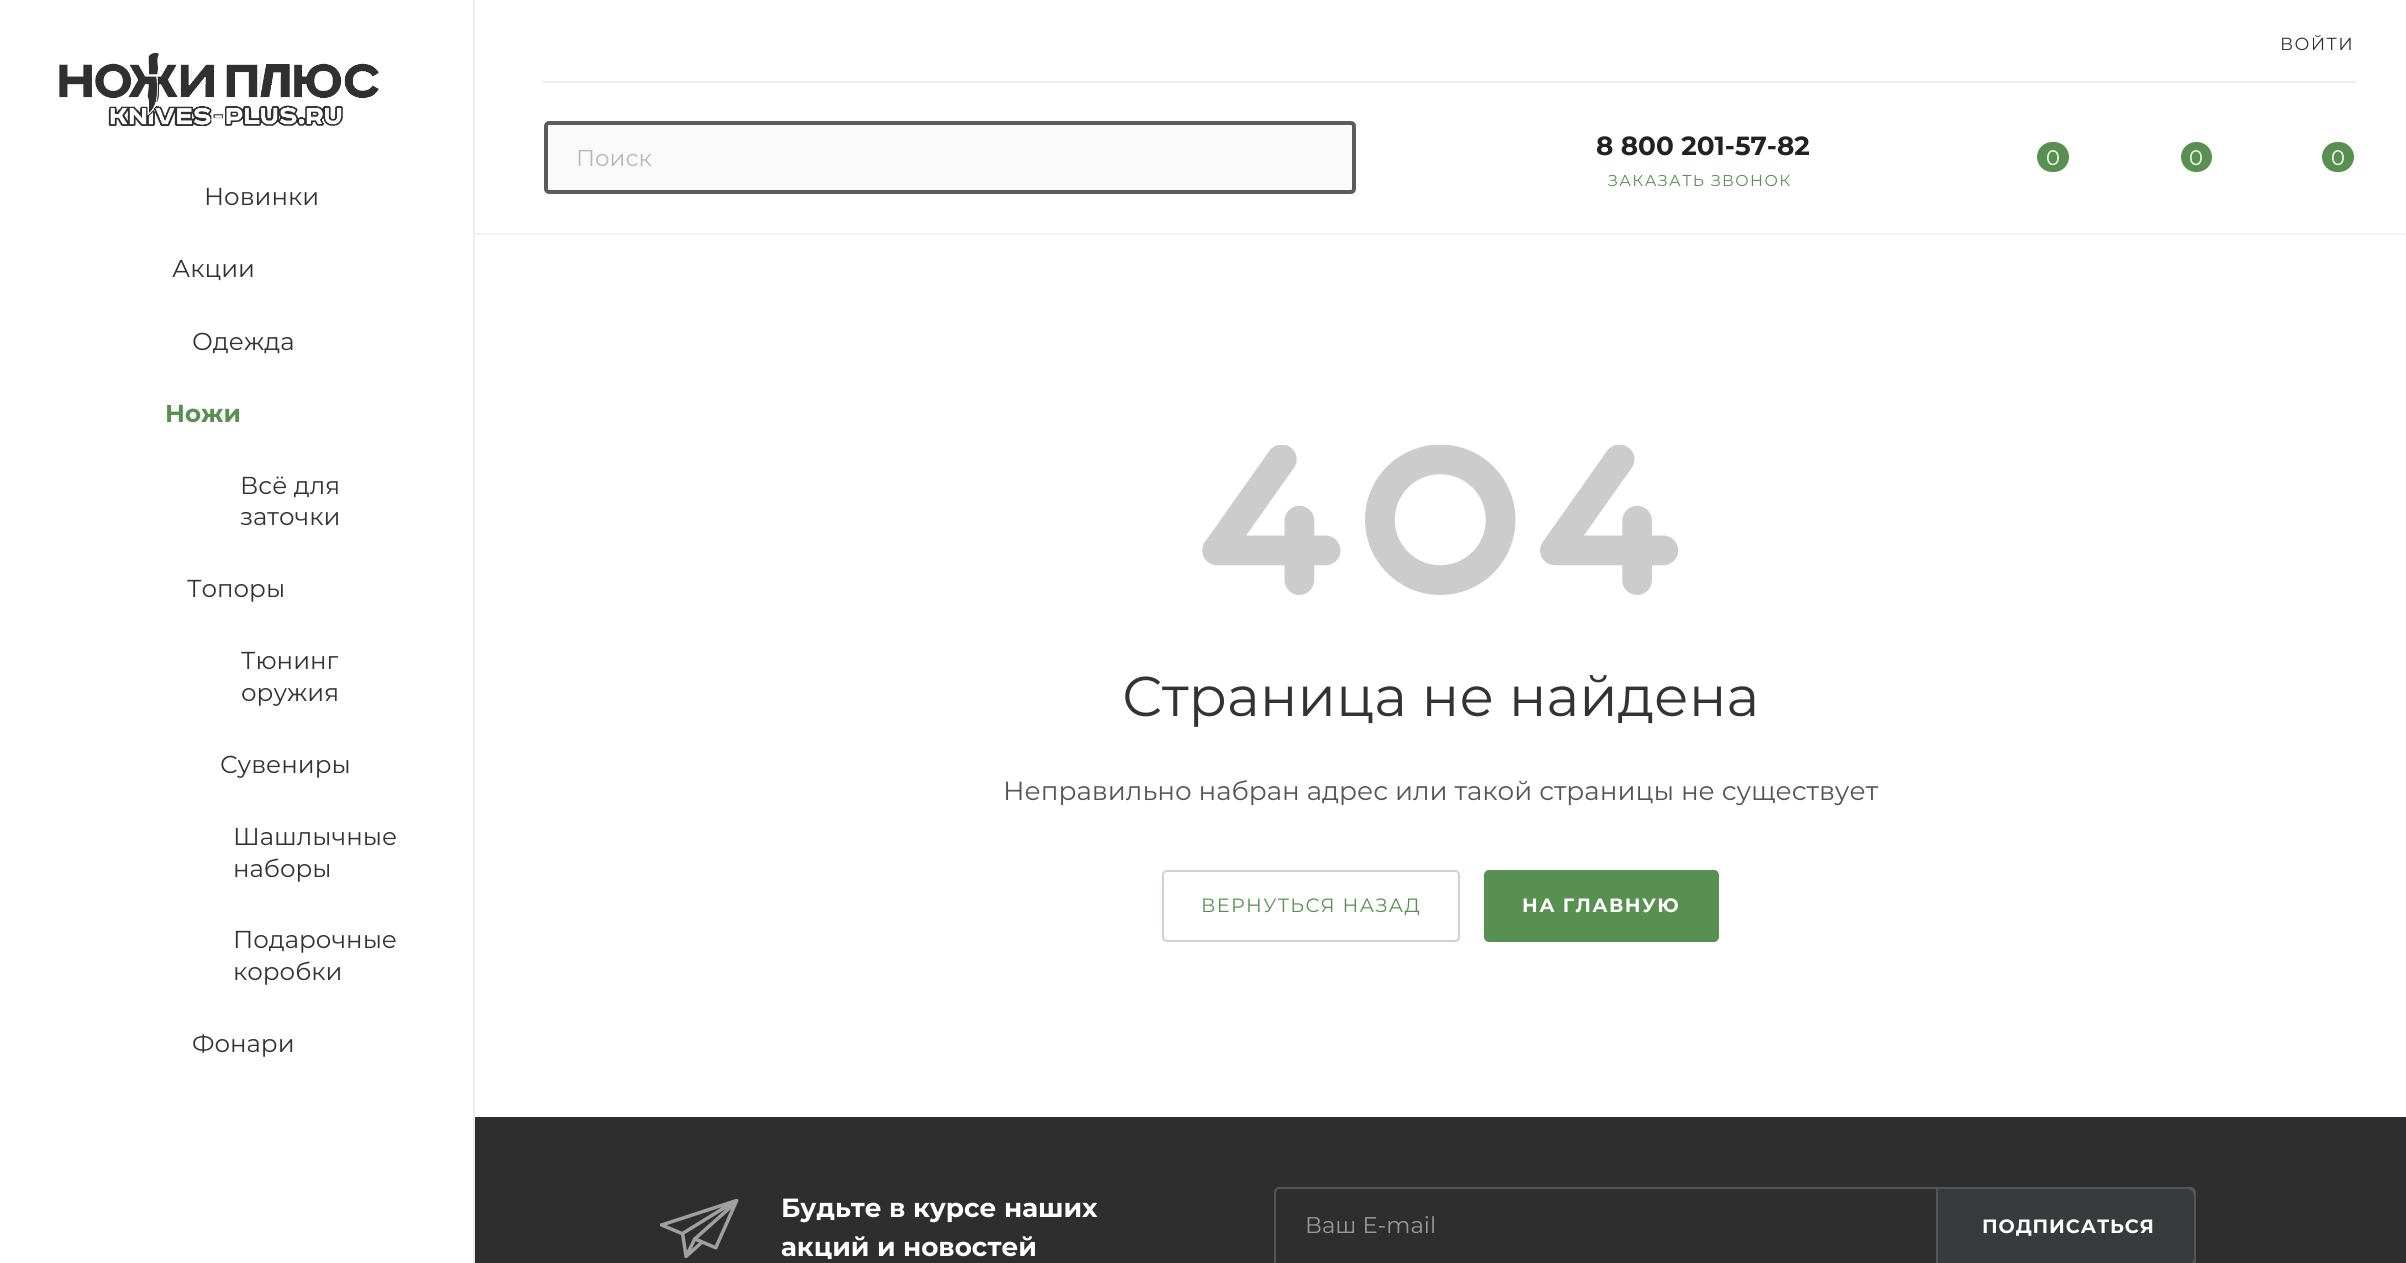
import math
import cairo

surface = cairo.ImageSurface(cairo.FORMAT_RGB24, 2406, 1263)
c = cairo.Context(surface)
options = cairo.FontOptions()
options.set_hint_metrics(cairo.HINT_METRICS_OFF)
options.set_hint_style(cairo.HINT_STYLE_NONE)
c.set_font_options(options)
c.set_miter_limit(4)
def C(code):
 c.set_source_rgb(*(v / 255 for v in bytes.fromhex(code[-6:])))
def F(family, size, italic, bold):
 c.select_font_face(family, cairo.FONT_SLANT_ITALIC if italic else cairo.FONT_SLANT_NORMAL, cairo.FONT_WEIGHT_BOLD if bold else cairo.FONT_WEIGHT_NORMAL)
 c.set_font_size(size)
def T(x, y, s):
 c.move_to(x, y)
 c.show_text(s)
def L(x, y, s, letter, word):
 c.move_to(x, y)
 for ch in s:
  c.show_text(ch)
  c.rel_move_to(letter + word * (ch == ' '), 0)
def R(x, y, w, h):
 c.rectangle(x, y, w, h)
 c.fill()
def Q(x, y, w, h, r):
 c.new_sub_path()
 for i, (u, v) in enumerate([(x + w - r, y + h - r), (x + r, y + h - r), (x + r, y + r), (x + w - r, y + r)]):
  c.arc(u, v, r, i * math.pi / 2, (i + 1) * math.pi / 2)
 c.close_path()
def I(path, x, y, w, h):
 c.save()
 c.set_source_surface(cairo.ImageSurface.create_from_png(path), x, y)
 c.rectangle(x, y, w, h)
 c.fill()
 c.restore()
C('ffffff')
c.paint()
c.save()
c.rectangle(2265,35,89,21)
c.clip()
F('Montserrat',17.5,0,0)
C('333333')
L(2280,50,'ВОЙТИ',1.4,0)
c.restore()
C('ededed')
R(543,81,1813,2)
C('fafafa')
Q(546,123,808,69,3)
c.fill_preserve()
C('5c5c5c')
c.set_line_width(4)
c.stroke()
F('Montserrat',23,0,0)
C('b8b8b8')
T(576,166,'Поиск')
F('Montserrat',26.25,0,1)
C('222222')
T(1596,155,'8 800 201-57-82')
F('Montserrat',15.75,0,0)
C('589051')
L(1608,186,'ЗАКАЗАТЬ ЗВОНОК',1.4,0)
Q(2037,142,32,30,15)
c.fill()
F('Montserrat',21,0,0)
C('ffffff')
T(2046,165,'0')
C('589051')
Q(2181,142,31,30,15)
c.fill()
C('ffffff')
T(2189,165,'0')
C('589051')
Q(2322,142,32,30,15)
c.fill()
C('ffffff')
T(2331,165,'0')
C('f2f2f2')
R(474,233,1932,2)
C('ececec')
R(473,0,2,1263)
I('1.png',59,53,320,73)
F('Montserrat',24.5,0,0)
C('333333')
T(204,205,'Новинки')
T(172,277,'Акции')
T(192,350,'Одежда')
F('Montserrat',24.5,0,1)
C('589051')
T(165,422,'Ножи')
F('Montserrat',24.5,0,0)
C('333333')
T(240,494,'Всё для')
T(240,525,'заточки')
T(187,597,'Топоры')
T(241,669,'Тюнинг')
T(241,701,'оружия')
T(220,773,'Сувениры')
T(233,845,'Шашлычные')
T(233,877,'наборы')
T(233,948,'Подарочные')
T(233,980,'коробки')
T(192,1052,'Фонари')
I('2.png',1202,445,476,150)
F('Montserrat',56,0,0)
T(1122,716,'Страница не найдена')
F('Montserrat',26.25,0,0)
C('555555')
T(1003,800,'Неправильно набран адрес или такой страницы не существует')
Q(1163,871,296,70,4)
C('c5d8c2')
c.set_line_width(2)
c.stroke()
F('Montserrat',19.25,0,0)
C('589051')
L(1201,912,'ВЕРНУТЬСЯ НАЗАД',1.4,0)
Q(1485,871,233,70,4)
c.fill_preserve()
c.stroke()
F('Montserrat',19.25,0,1)
C('ffffff')
L(1522,912,'НА ГЛАВНУЮ',1.4,0)
C('2e2e2e')
R(475,1117,1931,146)
I('3.png',660,1199,79,59)
F('Montserrat',26.25,0,1)
C('ffffff')
T(781,1217,'Будьте в курсе наших')
T(781,1256,'акций и новостей')
c.new_path()
c.move_to(1279,1188)
c.line_to(2187,1188)
c.curve_to(2191.5,1188,2195,1191.5,2195,1196)
c.line_to(2195,1258)
c.curve_to(2195,1262.5,2191.5,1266,2187,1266)
c.line_to(1279,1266)
c.curve_to(1277,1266,1275,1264,1275,1262)
c.line_to(1275,1192)
c.curve_to(1275,1190,1277,1188,1279,1188)
c.close_path()
C('555555')
c.stroke()
F('Montserrat',22.75,0,0)
C('999999')
T(1305,1233,'Ваш E-mail')
c.set_source_rgba(0.408,0.416,0.431,0.2)
c.new_path()
c.move_to(1937,1188)
c.line_to(2191,1188)
c.curve_to(2193,1188,2195,1190,2195,1192)
c.line_to(2195,1262)
c.curve_to(2195,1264,2193,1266,2191,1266)
c.line_to(1937,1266)
c.close_path()
c.fill_preserve()
C('555555')
c.stroke()
F('Montserrat',19.25,0,1)
C('ffffff')
L(1982,1233,'ПОДПИСАТЬСЯ',.9,0)
surface.write_to_png('o.png')
